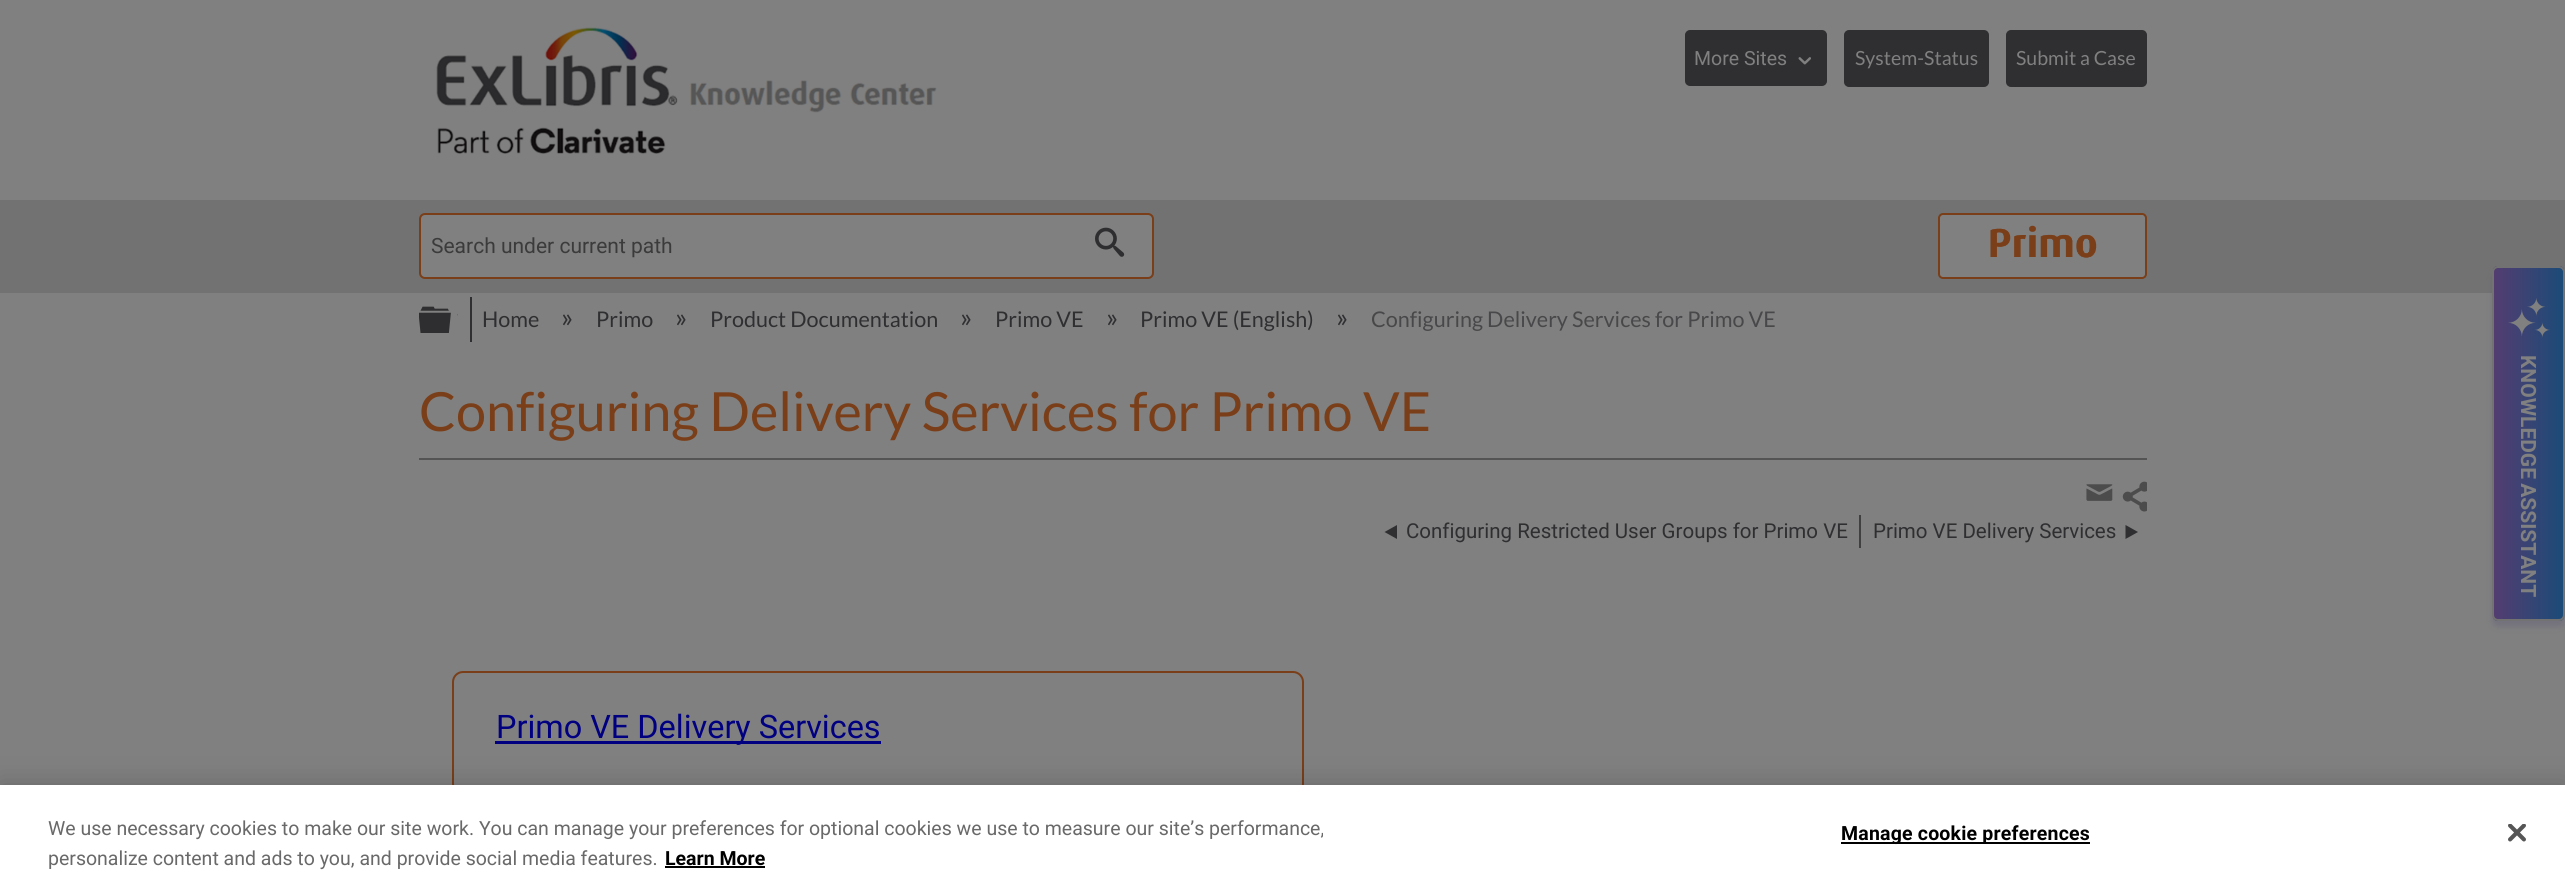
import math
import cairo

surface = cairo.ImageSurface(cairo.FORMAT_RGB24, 2565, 887)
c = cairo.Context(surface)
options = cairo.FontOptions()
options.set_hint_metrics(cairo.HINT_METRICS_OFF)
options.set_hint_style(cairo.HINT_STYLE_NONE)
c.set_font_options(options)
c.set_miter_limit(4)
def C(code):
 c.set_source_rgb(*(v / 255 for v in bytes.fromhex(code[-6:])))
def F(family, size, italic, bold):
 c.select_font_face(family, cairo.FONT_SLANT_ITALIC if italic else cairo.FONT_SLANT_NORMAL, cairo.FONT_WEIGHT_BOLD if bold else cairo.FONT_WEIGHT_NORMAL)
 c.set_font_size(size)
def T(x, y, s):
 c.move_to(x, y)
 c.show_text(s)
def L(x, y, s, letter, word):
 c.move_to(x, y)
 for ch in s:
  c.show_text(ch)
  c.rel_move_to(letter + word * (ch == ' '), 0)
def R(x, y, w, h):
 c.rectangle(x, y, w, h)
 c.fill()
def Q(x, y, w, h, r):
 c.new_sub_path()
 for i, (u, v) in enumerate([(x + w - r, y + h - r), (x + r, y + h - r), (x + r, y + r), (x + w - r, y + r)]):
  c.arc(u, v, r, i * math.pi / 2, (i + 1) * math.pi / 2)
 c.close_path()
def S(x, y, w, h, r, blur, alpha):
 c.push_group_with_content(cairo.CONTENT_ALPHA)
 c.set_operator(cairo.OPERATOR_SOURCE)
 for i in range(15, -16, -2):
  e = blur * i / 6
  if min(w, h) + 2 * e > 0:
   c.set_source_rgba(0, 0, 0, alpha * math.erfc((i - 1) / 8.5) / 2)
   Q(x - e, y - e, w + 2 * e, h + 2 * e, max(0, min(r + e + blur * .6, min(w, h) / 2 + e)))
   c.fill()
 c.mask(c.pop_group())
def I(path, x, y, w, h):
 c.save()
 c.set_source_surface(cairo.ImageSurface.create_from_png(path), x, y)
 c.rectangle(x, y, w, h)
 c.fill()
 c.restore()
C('808080')
c.paint()
C('727272')
R(0,200,2565,93)
C('808080')
Q(420,214,733,64,5)
c.fill_preserve()
C('7a3e18')
c.stroke()
F('Roboto',21,0,0)
C('3b3b3b')
T(431,253,'Search under current path')
I('1.png',1095,227,30,30)
C('808080')
Q(1939,214,207,64,4)
c.fill_preserve()
C('7a3e18')
c.stroke()
I('2.png',1990,225,107,33)
I('3.png',436,27,501,127)
C('2f2e31')
Q(1686,31,140,54,4)
c.fill_preserve()
c.stroke()
F('Roboto',19.5,0,0)
C('808080')
T(1694,65,'More Sites')
I('4.png',1798,57,13,8)
C('2f2e31')
Q(1845,31,143,55,4)
c.fill_preserve()
c.stroke()
F('Lato',19.5,0,0)
C('808080')
T(1855,65,'System-Status')
C('2f2e31')
Q(2007,31,139,55,4)
c.fill_preserve()
c.stroke()
C('808080')
T(2016,65,'Submit a Case')
C('423c73')
S(2492,272,73,355,6,3,.2)
c.save()
Q(2492,266,73,355,6)
c.clip()
gradient = cairo.LinearGradient(2493,444,2564,444)
gradient.add_color_stop_rgba(0,0.329,0.239,0.439,1)
gradient.add_color_stop_rgba(1,0.106,0.294,0.471,1)
c.set_source(gradient)
R(2493,266,71,355)
c.restore()
Q(2493,267,71,353,5)
C('727272')
c.stroke()
I('5.png',2508,298,42,40)
F('Roboto',21,0,1)
C('808080')
c.save()
c.translate(2521,355)
c.rotate(90 * math.pi / 180)
L(0,0,'KNOWLEDGE ASSISTANT',0,-1)
c.restore()
I('6.png',419,306,39,27)
C('2f2e31')
R(470,297,2,45)
F('Lato',21.6,0,0)
T(482,327,'Home')
F('Lato',27,0,0)
T(561,327,'»')
F('Lato',21.6,0,0)
T(596,327,'Primo')
F('Lato',27,0,0)
T(675,327,'»')
F('Lato',21.6,0,0)
T(710,327,'Product Documentation')
F('Lato',27,0,0)
T(960,327,'»')
F('Lato',21.6,0,0)
T(995,327,'Primo VE')
F('Lato',27,0,0)
T(1106,327,'»')
F('Lato',21.6,0,0)
T(1140,327,'Primo VE (English)')
F('Lato',27,0,0)
T(1336,327,'»')
F('Lato',21.6,0,0)
C('48484a')
T(1371,327,'Configuring Delivery Services for Primo VE')
C('545454')
R(419,458,1728,2)
F('Lato',54,0,0)
C('7a3e18')
T(419,431,'Configuring Delivery Services for Primo VE')
I('7.png',2086,484,27,17)
I('8.png',2122,481,25,31)
C('404040')
R(1859,515,2,33)
C('2f2e31')
c.new_path()
c.move_to(1397,525)
c.line_to(1397,539)
c.line_to(1384.5,532)
c.close_path()
c.fill()
F('Roboto',20.5,0,0)
T(1406,538,'Configuring Restricted User Groups for Primo VE')
T(1873,538,'Primo VE Delivery Services')
c.new_path()
c.move_to(2125.5,525)
c.line_to(2125.5,539)
c.line_to(2138,532)
c.close_path()
c.fill()
Q(453,672,850,122,10)
C('7a3e18')
c.stroke()
C('000080')
R(495,741,386,3)
F('Roboto',32.4,0,0)
T(496,738,'Primo VE Delivery Services')
C('000000')
S(0,785,2565,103,0,13.5,.2)
C('ffffff')
R(0,785,2565,102)
F('Roboto',19.5,0,0)
C('696969')
T(48,835,'We use necessary cookies to make our site work. You can manage your preferences for optional cookies we use to measure our site’s performance,')
T(48,865,'personalize content and ads to you, and provide social media features.')
F('Roboto',19.5,0,1)
C('000000')
T(665,865,'Learn More')
R(665,866,100,2)
R(1841,842,249,2)
L(1841,840,'Manage cookie preferences',.2,0)
I('9.png',2508,824,18,18)
surface.write_to_png('o.png')
